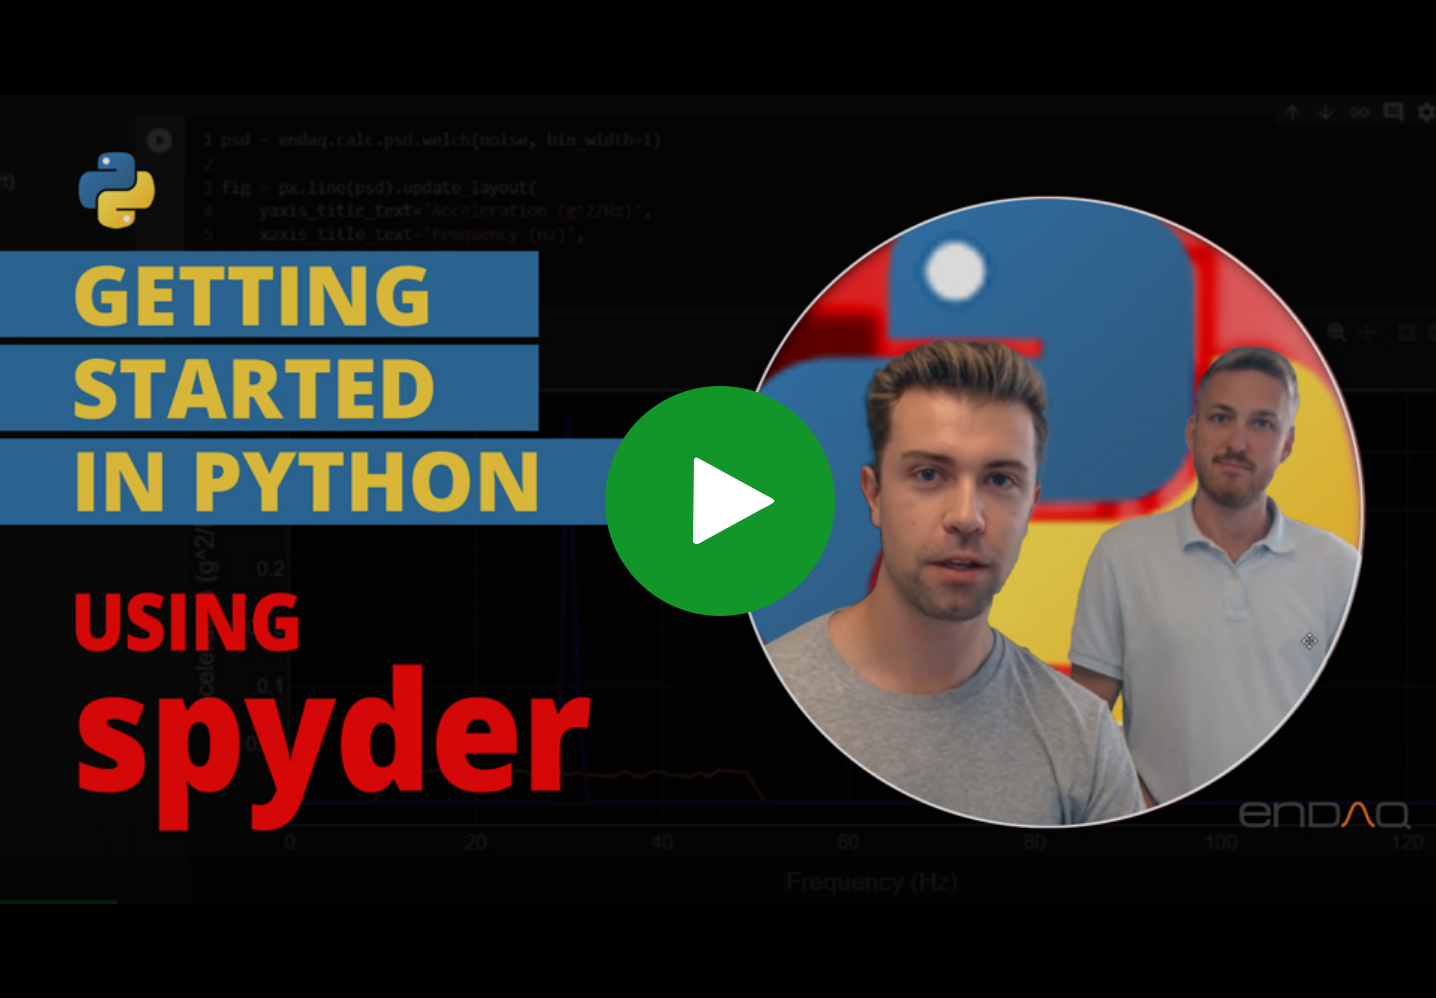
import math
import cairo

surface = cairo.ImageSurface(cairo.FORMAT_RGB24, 1436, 998)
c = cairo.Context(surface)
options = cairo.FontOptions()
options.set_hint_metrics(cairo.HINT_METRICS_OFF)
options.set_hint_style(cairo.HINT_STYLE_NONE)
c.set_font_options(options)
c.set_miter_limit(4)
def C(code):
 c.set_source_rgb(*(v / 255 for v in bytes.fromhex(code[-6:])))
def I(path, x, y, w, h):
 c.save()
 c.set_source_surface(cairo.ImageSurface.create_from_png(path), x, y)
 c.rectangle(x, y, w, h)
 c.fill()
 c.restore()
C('000000')
c.paint()
I('1.png',0,95,1436,809)
C('12962a')
c.arc(720,501,115,0,2 * math.pi)
c.fill()
C('ffffff')
c.new_path()
c.move_to(698,458)
c.line_to(760,492)
c.curve_to(779,502,779,500,760,510)
c.line_to(698,544)
c.line_to(695,544)
c.line_to(693,542)
c.line_to(694,460)
c.curve_to(694,458,696,457,698,458)
c.close_path()
c.fill()
surface.write_to_png('o.png')
